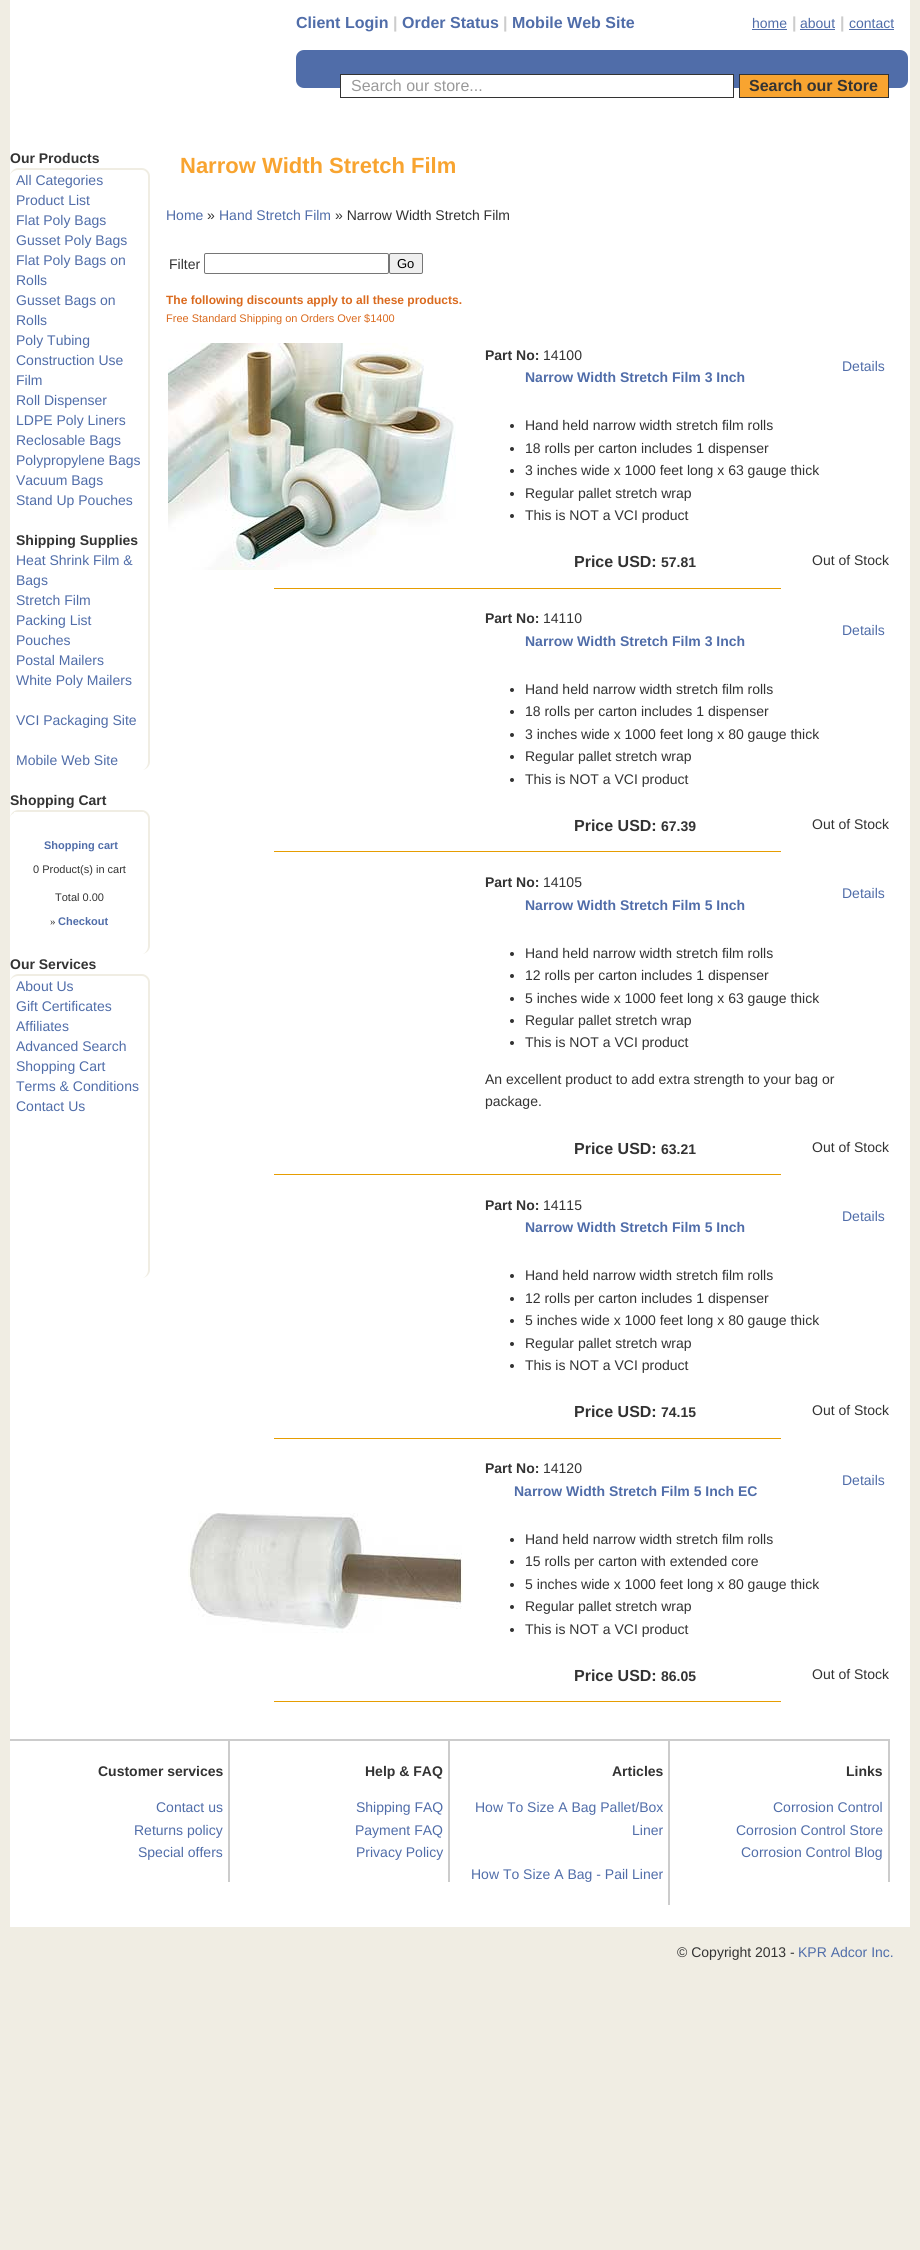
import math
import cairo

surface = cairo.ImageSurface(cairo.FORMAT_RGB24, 920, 2250)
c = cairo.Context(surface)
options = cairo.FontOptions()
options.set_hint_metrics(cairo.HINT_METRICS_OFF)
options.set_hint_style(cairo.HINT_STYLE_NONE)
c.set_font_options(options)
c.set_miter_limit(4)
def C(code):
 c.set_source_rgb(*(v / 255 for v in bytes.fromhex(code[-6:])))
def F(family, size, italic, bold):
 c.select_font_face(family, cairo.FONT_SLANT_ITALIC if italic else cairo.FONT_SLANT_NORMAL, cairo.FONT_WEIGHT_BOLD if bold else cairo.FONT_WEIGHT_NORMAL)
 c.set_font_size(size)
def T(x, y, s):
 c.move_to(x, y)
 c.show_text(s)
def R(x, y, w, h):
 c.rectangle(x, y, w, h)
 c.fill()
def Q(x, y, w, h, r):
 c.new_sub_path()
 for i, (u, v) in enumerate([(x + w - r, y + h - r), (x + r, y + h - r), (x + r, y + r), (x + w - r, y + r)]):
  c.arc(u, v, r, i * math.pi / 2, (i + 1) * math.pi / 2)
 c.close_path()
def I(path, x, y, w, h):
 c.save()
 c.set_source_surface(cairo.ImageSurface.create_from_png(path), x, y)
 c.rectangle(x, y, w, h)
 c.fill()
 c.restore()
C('f0ede3')
c.paint()
C('ffffff')
R(10,0,900,1927)
F('Liberation Sans',16,0,1)
C('506da9')
T(296,28,'Client Login')
C('cccccc')
T(393,28,'|')
C('506da9')
T(402,28,'Order Status')
C('cccccc')
T(503,28,'|')
C('506da9')
T(512,28,'Mobile Web Site')
F('Liberation Sans',14,0,0)
T(752,28,'home')
R(752,29,35,1)
F('Liberation Sans',16,0,1)
C('cccccc')
T(792,28,'|')
F('Liberation Sans',14,0,0)
C('506da9')
T(800,28,'about')
R(800,29,35,1)
F('Liberation Sans',16,0,1)
C('cccccc')
T(840,28,'|')
F('Liberation Sans',14,0,0)
C('506da9')
T(849,28,'contact')
R(849,29,45,1)
Q(296,50,612,38,8)
c.fill()
C('ffffff')
R(341,75,392,13)
c.rectangle(340.5,74.5,393,23)
C('333333')
c.set_line_width(1)
c.stroke()
F('Liberation Sans',16,0,0)
C('999999')
T(351,91,'Search our store...')
C('f8a430')
c.rectangle(739.5,74.5,149,23)
c.fill_preserve()
C('333333')
c.stroke()
F('Liberation Sans',16,0,1)
T(749,91,'Search our Store')
F('Liberation Sans',14,0,1)
T(10,163,'Our Products')
C('f0ede3')
c.set_fill_rule(cairo.FILL_RULE_EVEN_ODD)
c.new_path()
c.move_to(18,168)
c.line_to(142,168)
c.curve_to(146,168,150,172,150,176)
c.line_to(150,762)
c.curve_to(150,766,146,770,142,770)
c.line_to(18,770)
c.curve_to(14,770,10,766,10,762)
c.line_to(10,176)
c.curve_to(10,172,14,168,18,168)
c.close_path()
c.move_to(18,170)
c.line_to(142,170)
c.curve_to(145,170,148,173,148,176)
c.line_to(148,762)
c.curve_to(148,766,145,770,142,770)
c.line_to(18,770)
c.curve_to(14,770,10,766,10,762)
c.line_to(10,176)
c.curve_to(10,173,14,170,18,170)
c.close_path()
c.fill()
F('Liberation Sans',14,0,0)
C('506da9')
T(16,185,'All Categories')
T(16,205,'Product List')
T(16,225,'Flat Poly Bags')
T(16,245,'Gusset Poly Bags')
T(16,265,'Flat Poly Bags on')
T(16,285,'Rolls')
T(16,305,'Gusset Bags on')
T(16,325,'Rolls')
T(16,345,'Poly Tubing')
T(16,365,'Construction Use')
T(16,385,'Film')
T(16,405,'Roll Dispenser')
T(16,425,'LDPE Poly Liners')
T(16,445,'Reclosable Bags')
T(16,465,'Polypropylene Bags')
T(16,485,'Vacuum Bags')
T(16,505,'Stand Up Pouches')
F('Liberation Sans',14,0,1)
C('333333')
T(16,545,'Shipping Supplies')
F('Liberation Sans',14,0,0)
C('506da9')
T(16,565,'Heat Shrink Film &')
T(16,585,'Bags')
T(16,605,'Stretch Film')
T(16,625,'Packing List')
T(16,645,'Pouches')
T(16,665,'Postal Mailers')
T(16,685,'White Poly Mailers')
T(16,725,'VCI Packaging Site')
T(16,765,'Mobile Web Site')
F('Liberation Sans',14,0,1)
C('333333')
T(10,805,'Shopping Cart')
C('f0ede3')
c.new_path()
c.move_to(18,810)
c.line_to(142,810)
c.curve_to(146,810,150,814,150,818)
c.line_to(150,946)
c.curve_to(150,950,146,954,142,954)
c.line_to(18,954)
c.curve_to(14,954,10,950,10,946)
c.line_to(10,818)
c.curve_to(10,814,14,810,18,810)
c.close_path()
c.move_to(18,812)
c.line_to(142,812)
c.curve_to(145,812,148,815,148,818)
c.line_to(148,946)
c.curve_to(148,950,145,954,142,954)
c.line_to(18,954)
c.curve_to(14,954,10,950,10,946)
c.line_to(10,818)
c.curve_to(10,815,14,812,18,812)
c.close_path()
c.fill()
C('ffffff')
R(14,812,130,1)
F('Liberation Sans',11,0,1)
C('506da9')
T(44,849,'Shopping cart')
F('Liberation Sans',11,0,0)
C('333333')
T(33,873,'0 Product(s) in cart')
T(55,901,'Total 0.00')
F('Liberation Serif',11,0,0)
T(50,925,'»')
F('Liberation Sans',11,0,1)
C('506da9')
T(58,925,'Checkout')
F('Liberation Sans',14,0,1)
C('333333')
T(10,969,'Our Services')
C('f0ede3')
c.new_path()
c.move_to(18,974)
c.line_to(142,974)
c.curve_to(146,974,150,978,150,982)
c.line_to(150,1270)
c.curve_to(150,1274,146,1278,142,1278)
c.line_to(18,1278)
c.curve_to(14,1278,10,1274,10,1270)
c.line_to(10,982)
c.curve_to(10,978,14,974,18,974)
c.close_path()
c.move_to(18,976)
c.line_to(142,976)
c.curve_to(145,976,148,979,148,982)
c.line_to(148,1270)
c.curve_to(148,1274,145,1278,142,1278)
c.line_to(18,1278)
c.curve_to(14,1278,10,1274,10,1270)
c.line_to(10,982)
c.curve_to(10,979,14,976,18,976)
c.close_path()
c.fill()
F('Liberation Sans',14,0,0)
C('506da9')
T(16,991,'About Us')
T(16,1011,'Gift Certificates')
T(16,1031,'Affiliates')
T(16,1051,'Advanced Search')
T(16,1071,'Shopping Cart')
T(16,1091,'Terms & Conditions')
T(16,1111,'Contact Us')
F('Liberation Sans',22,0,1)
C('f8a430')
T(180,173,'Narrow Width Stretch Film')
F('Liberation Sans',14,0,0)
C('506da9')
T(166,220,'Home')
C('333333')
T(207,220,'»')
C('506da9')
T(219,220,'Hand Stretch Film')
C('333333')
T(335,220,'» Narrow Width Stretch Film')
T(169,269,'Filter')
Q(204.5,253.5,184,20,1.5)
C('767676')
c.stroke()
C('efefef')
Q(389.5,253.5,33,20,1.5)
c.fill_preserve()
C('767676')
c.stroke()
F('Liberation Sans',13,0,0)
C('000000')
T(397,268,'Go')
F('Liberation Sans',12,0,1)
C('da6a1e')
T(166,304,'The following discounts apply to all these products.')
F('Liberation Sans',11,0,0)
T(166,322,'Free Standard Shipping on Orders Over $1400')
I('1.png',168,343,288,227)
F('Liberation Sans',14,0,1)
C('333333')
T(485,360,'Part No:')
F('Liberation Sans',14,0,0)
T(543,360,'14100')
F('Liberation Sans',14,0,1)
C('506da9')
T(525,382,'Narrow Width Stretch Film 3 Inch')
F('Liberation Sans',14,0,0)
T(842,371,'Details')
C('333333')
c.new_path()
c.arc(512,426,2,0,2 * math.pi)
c.fill()
T(525,430,'Hand held narrow width stretch film rolls')
c.new_path()
c.arc(512,449,2,0,2 * math.pi)
c.fill()
T(525,453,'18 rolls per carton includes 1 dispenser')
c.new_path()
c.arc(512,471,2,0,2 * math.pi)
c.fill()
T(525,475,'3 inches wide x 1000 feet long x 63 gauge thick')
c.new_path()
c.arc(512,494,2,0,2 * math.pi)
c.fill()
T(525,498,'Regular pallet stretch wrap')
c.new_path()
c.arc(512,516,2,0,2 * math.pi)
c.fill()
T(525,520,'This is NOT a VCI product')
F('Liberation Sans',16,0,1)
T(574,567,'Price USD:')
F('Liberation Sans',14,0,1)
T(661,567,'57.81')
F('Liberation Sans',14,0,0)
T(812,565,'Out of Stock')
C('e69d01')
R(274,588,507,1)
F('Liberation Sans',14,0,1)
C('333333')
T(485,623,'Part No:')
F('Liberation Sans',14,0,0)
T(543,623,'14110')
F('Liberation Sans',14,0,1)
C('506da9')
T(525,646,'Narrow Width Stretch Film 3 Inch')
F('Liberation Sans',14,0,0)
T(842,635,'Details')
C('333333')
c.new_path()
c.arc(512,690,2,0,2 * math.pi)
c.fill()
T(525,694,'Hand held narrow width stretch film rolls')
c.new_path()
c.arc(512,712,2,0,2 * math.pi)
c.fill()
T(525,716,'18 rolls per carton includes 1 dispenser')
c.new_path()
c.arc(512,735,2,0,2 * math.pi)
c.fill()
T(525,739,'3 inches wide x 1000 feet long x 80 gauge thick')
c.new_path()
c.arc(512,757,2,0,2 * math.pi)
c.fill()
T(525,761,'Regular pallet stretch wrap')
c.new_path()
c.arc(512,780,2,0,2 * math.pi)
c.fill()
T(525,784,'This is NOT a VCI product')
F('Liberation Sans',16,0,1)
T(574,831,'Price USD:')
F('Liberation Sans',14,0,1)
T(661,831,'67.39')
F('Liberation Sans',14,0,0)
T(812,829,'Out of Stock')
C('e69d01')
R(274,851,507,1)
F('Liberation Sans',14,0,1)
C('333333')
T(485,887,'Part No:')
F('Liberation Sans',14,0,0)
T(543,887,'14105')
F('Liberation Sans',14,0,1)
C('506da9')
T(525,910,'Narrow Width Stretch Film 5 Inch')
F('Liberation Sans',14,0,0)
T(842,898,'Details')
C('333333')
c.new_path()
c.arc(512,954,2,0,2 * math.pi)
c.fill()
T(525,958,'Hand held narrow width stretch film rolls')
c.new_path()
c.arc(512,976,2,0,2 * math.pi)
c.fill()
T(525,980,'12 rolls per carton includes 1 dispenser')
c.new_path()
c.arc(512,999,2,0,2 * math.pi)
c.fill()
T(525,1003,'5 inches wide x 1000 feet long x 63 gauge thick')
c.new_path()
c.arc(512,1021,2,0,2 * math.pi)
c.fill()
T(525,1025,'Regular pallet stretch wrap')
c.new_path()
c.arc(512,1043,2,0,2 * math.pi)
c.fill()
T(525,1047,'This is NOT a VCI product')
T(485,1084,'An excellent product to add extra strength to your bag or')
T(485,1106,'package.')
F('Liberation Sans',16,0,1)
T(574,1154,'Price USD:')
F('Liberation Sans',14,0,1)
T(661,1154,'63.21')
F('Liberation Sans',14,0,0)
T(812,1152,'Out of Stock')
C('e69d01')
R(274,1174,507,1)
F('Liberation Sans',14,0,1)
C('333333')
T(485,1210,'Part No:')
F('Liberation Sans',14,0,0)
T(543,1210,'14115')
F('Liberation Sans',14,0,1)
C('506da9')
T(525,1232,'Narrow Width Stretch Film 5 Inch')
F('Liberation Sans',14,0,0)
T(842,1221,'Details')
C('333333')
c.new_path()
c.arc(512,1276,2,0,2 * math.pi)
c.fill()
T(525,1280,'Hand held narrow width stretch film rolls')
c.new_path()
c.arc(512,1299,2,0,2 * math.pi)
c.fill()
T(525,1303,'12 rolls per carton includes 1 dispenser')
c.new_path()
c.arc(512,1321,2,0,2 * math.pi)
c.fill()
T(525,1325,'5 inches wide x 1000 feet long x 80 gauge thick')
c.new_path()
c.arc(512,1344,2,0,2 * math.pi)
c.fill()
T(525,1348,'Regular pallet stretch wrap')
c.new_path()
c.arc(512,1366,2,0,2 * math.pi)
c.fill()
T(525,1370,'This is NOT a VCI product')
F('Liberation Sans',16,0,1)
T(574,1417,'Price USD:')
F('Liberation Sans',14,0,1)
T(661,1417,'74.15')
F('Liberation Sans',14,0,0)
T(812,1415,'Out of Stock')
C('e69d01')
R(274,1438,507,1)
F('Liberation Sans',14,0,1)
C('333333')
T(485,1473,'Part No:')
F('Liberation Sans',14,0,0)
T(543,1473,'14120')
F('Liberation Sans',14,0,1)
C('506da9')
T(514,1496,'Narrow Width Stretch Film 5 Inch EC')
F('Liberation Sans',14,0,0)
T(842,1485,'Details')
I('2.png',188,1513,275,120)
C('333333')
c.arc(512,1540,2,0,2 * math.pi)
c.fill()
T(525,1544,'Hand held narrow width stretch film rolls')
c.new_path()
c.arc(512,1562,2,0,2 * math.pi)
c.fill()
T(525,1566,'15 rolls per carton with extended core')
c.new_path()
c.arc(512,1585,2,0,2 * math.pi)
c.fill()
T(525,1589,'5 inches wide x 1000 feet long x 80 gauge thick')
c.new_path()
c.arc(512,1607,2,0,2 * math.pi)
c.fill()
T(525,1611,'Regular pallet stretch wrap')
c.new_path()
c.arc(512,1630,2,0,2 * math.pi)
c.fill()
T(525,1634,'This is NOT a VCI product')
F('Liberation Sans',16,0,1)
T(574,1681,'Price USD:')
F('Liberation Sans',14,0,1)
T(661,1681,'86.05')
F('Liberation Sans',14,0,0)
T(812,1679,'Out of Stock')
C('e69d01')
R(274,1701,507,1)
C('cccccc')
R(10,1739,880,2)
R(228,1739,2,143)
F('Liberation Sans',14,0,1)
C('333333')
T(98,1776,'Customer services')
F('Liberation Sans',14,0,0)
C('506da9')
T(156,1812,'Contact us')
T(134,1835,'Returns policy')
T(138,1857,'Special offers')
C('cccccc')
R(448,1739,2,143)
F('Liberation Sans',14,0,1)
C('333333')
T(365,1776,'Help & FAQ')
F('Liberation Sans',14,0,0)
C('506da9')
T(356,1812,'Shipping FAQ')
T(355,1835,'Payment FAQ')
T(356,1857,'Privacy Policy')
C('cccccc')
R(668,1739,2,166)
F('Liberation Sans',14,0,1)
C('333333')
T(612,1776,'Articles')
F('Liberation Sans',14,0,0)
C('506da9')
T(475,1812,'How To Size A Bag Pallet/Box')
T(632,1835,'Liner')
T(471,1879,'How To Size A Bag - Pail Liner')
C('cccccc')
R(888,1739,2,143)
F('Liberation Sans',14,0,1)
C('333333')
T(846,1776,'Links')
F('Liberation Sans',14,0,0)
C('506da9')
T(773,1812,'Corrosion Control')
T(736,1835,'Corrosion Control Store')
T(741,1857,'Corrosion Control Blog')
C('333333')
T(677,1957,'© Copyright 2013 -')
C('506da9')
T(798,1957,'KPR Adcor Inc.')
surface.write_to_png('o.png')
